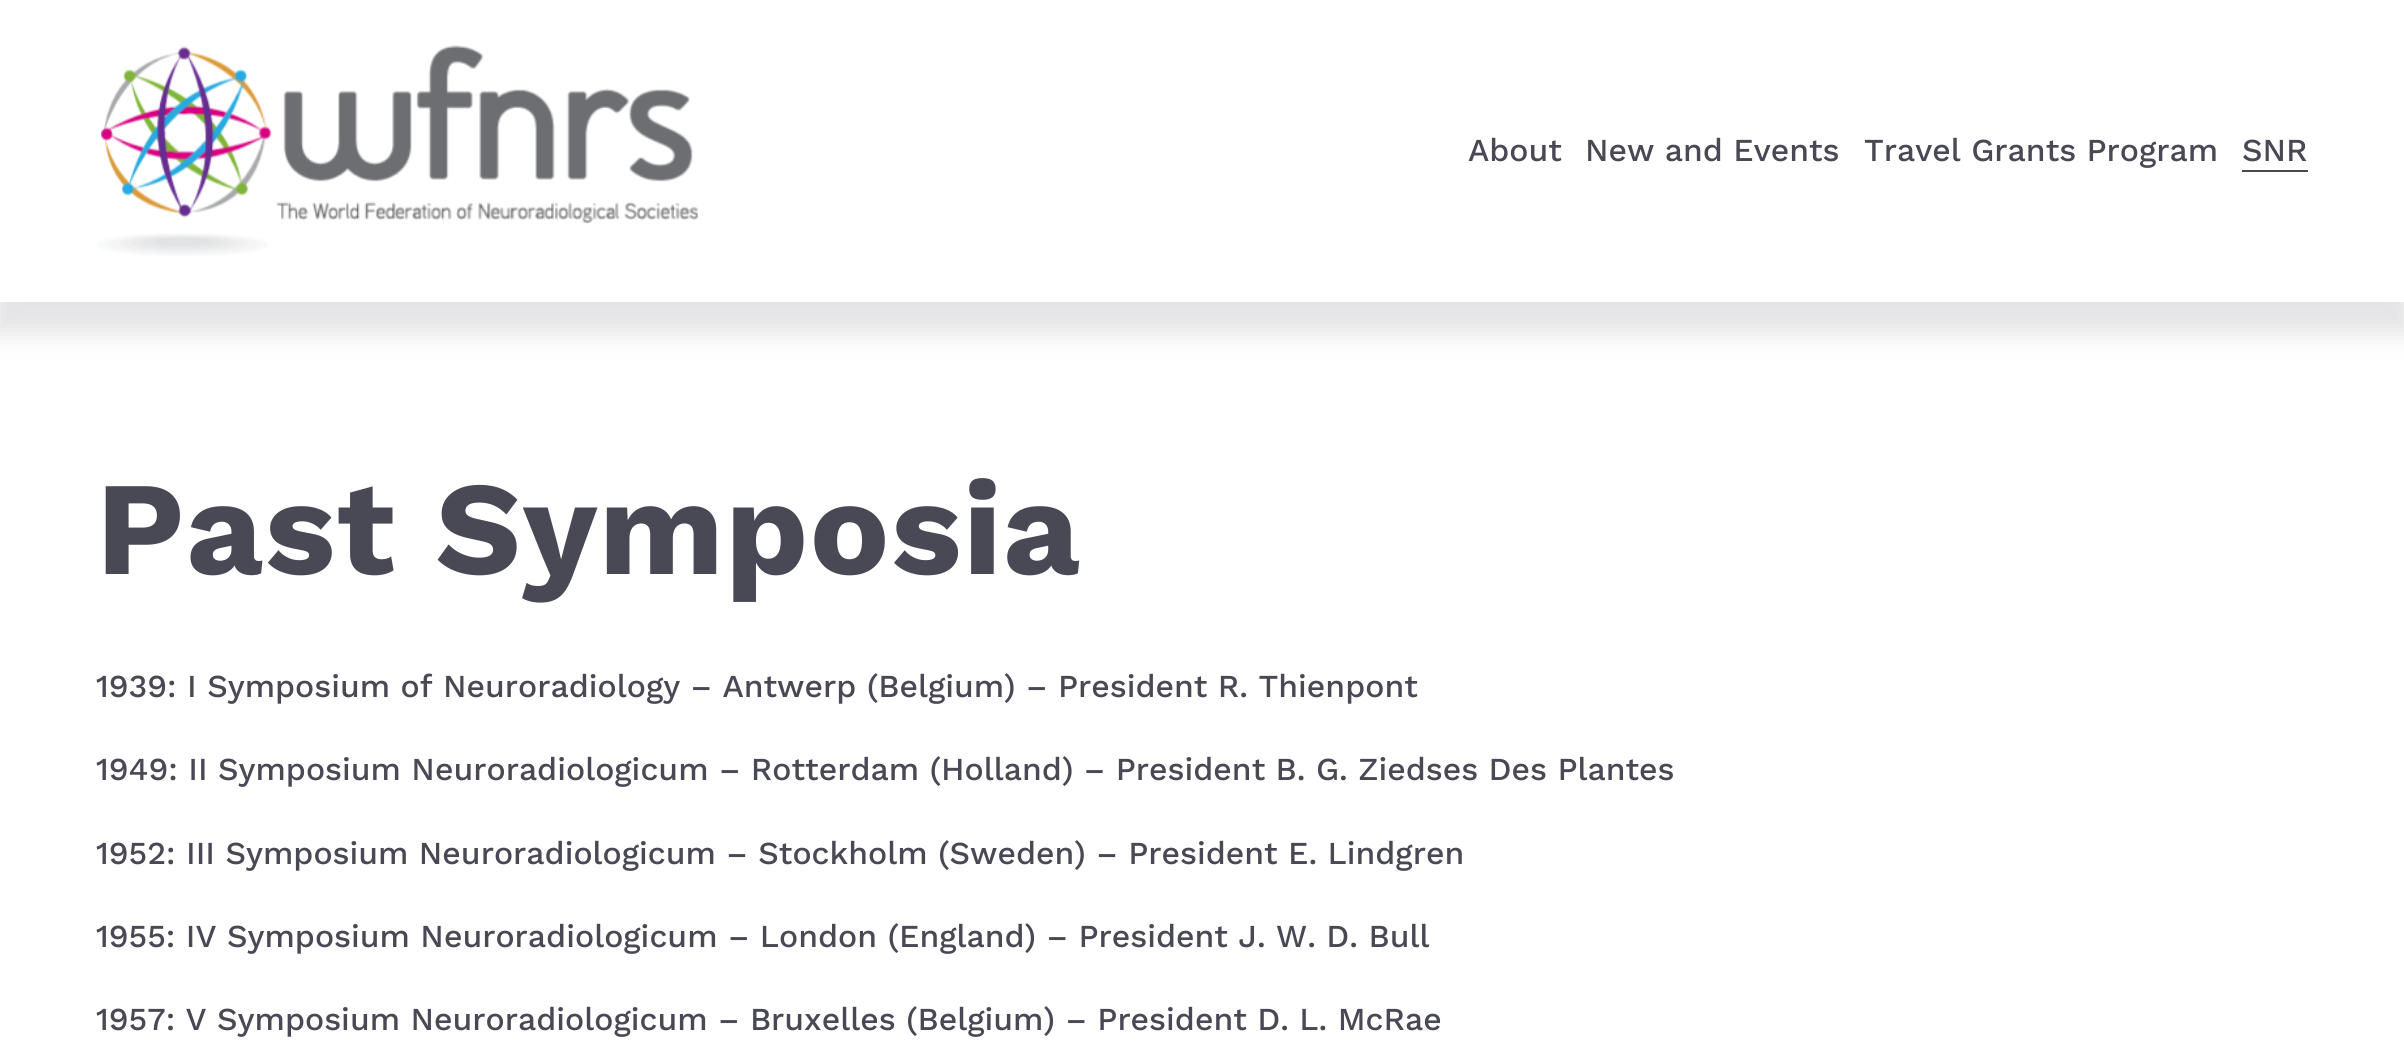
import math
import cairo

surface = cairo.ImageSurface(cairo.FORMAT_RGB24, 2404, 1052)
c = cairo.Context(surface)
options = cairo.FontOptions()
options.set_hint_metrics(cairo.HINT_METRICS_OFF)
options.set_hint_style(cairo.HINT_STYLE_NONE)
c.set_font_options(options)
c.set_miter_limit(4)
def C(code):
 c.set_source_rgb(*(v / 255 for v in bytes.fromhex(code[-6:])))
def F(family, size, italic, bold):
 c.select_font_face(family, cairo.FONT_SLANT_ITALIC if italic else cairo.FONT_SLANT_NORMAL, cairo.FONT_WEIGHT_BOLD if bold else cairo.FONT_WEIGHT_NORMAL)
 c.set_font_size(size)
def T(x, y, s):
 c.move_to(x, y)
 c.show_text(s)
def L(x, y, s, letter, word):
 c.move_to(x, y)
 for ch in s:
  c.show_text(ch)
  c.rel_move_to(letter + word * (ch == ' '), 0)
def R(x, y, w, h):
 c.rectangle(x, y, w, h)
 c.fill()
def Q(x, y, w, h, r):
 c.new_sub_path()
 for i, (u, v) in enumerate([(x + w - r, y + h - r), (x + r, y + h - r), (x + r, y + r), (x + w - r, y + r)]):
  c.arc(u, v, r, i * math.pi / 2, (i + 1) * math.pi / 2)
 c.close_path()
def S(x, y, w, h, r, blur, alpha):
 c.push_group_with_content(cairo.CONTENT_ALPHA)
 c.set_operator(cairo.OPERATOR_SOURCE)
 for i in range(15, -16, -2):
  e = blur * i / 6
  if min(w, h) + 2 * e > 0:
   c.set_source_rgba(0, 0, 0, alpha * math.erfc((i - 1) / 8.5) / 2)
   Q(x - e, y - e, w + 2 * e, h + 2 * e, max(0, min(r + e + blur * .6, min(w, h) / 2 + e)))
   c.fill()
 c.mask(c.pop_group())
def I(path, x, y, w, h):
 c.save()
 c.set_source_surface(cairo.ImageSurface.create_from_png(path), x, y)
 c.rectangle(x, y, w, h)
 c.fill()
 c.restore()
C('ffffff')
c.paint()
c.save()
c.rectangle(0,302,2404,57)
c.clip()
C('e4e4e6')
S(-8,16,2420,318,0,12,1)
c.restore()
I('1.png',97,45,601,211)
F('Work Sans Medium',32,0,0)
C('484955')
T(1468,161,'About')
T(1585,161,'New and Events')
T(1864,161,'Travel Grants Program')
R(2242,170,66,2)
T(2242,161,'SNR')
F('Work Sans',133,0,1)
L(96,574,'Past Symposia',1.3,0)
F('Work Sans Medium',32,0,0)
T(96,697,'1939: I Symposium of Neuroradiology – Antwerp (Belgium) – President R. Thienpont')
T(96,780,'1949: II Symposium Neuroradiologicum – Rotterdam (Holland) – President B. G. Ziedses Des Plantes')
T(96,864,'1952: III Symposium Neuroradiologicum – Stockholm (Sweden) – President E. Lindgren')
T(96,947,'1955: IV Symposium Neuroradiologicum – London (England) – President J. W. D. Bull')
T(96,1030,'1957: V Symposium Neuroradiologicum – Bruxelles (Belgium) – President D. L. McRae')
surface.write_to_png('o.png')
